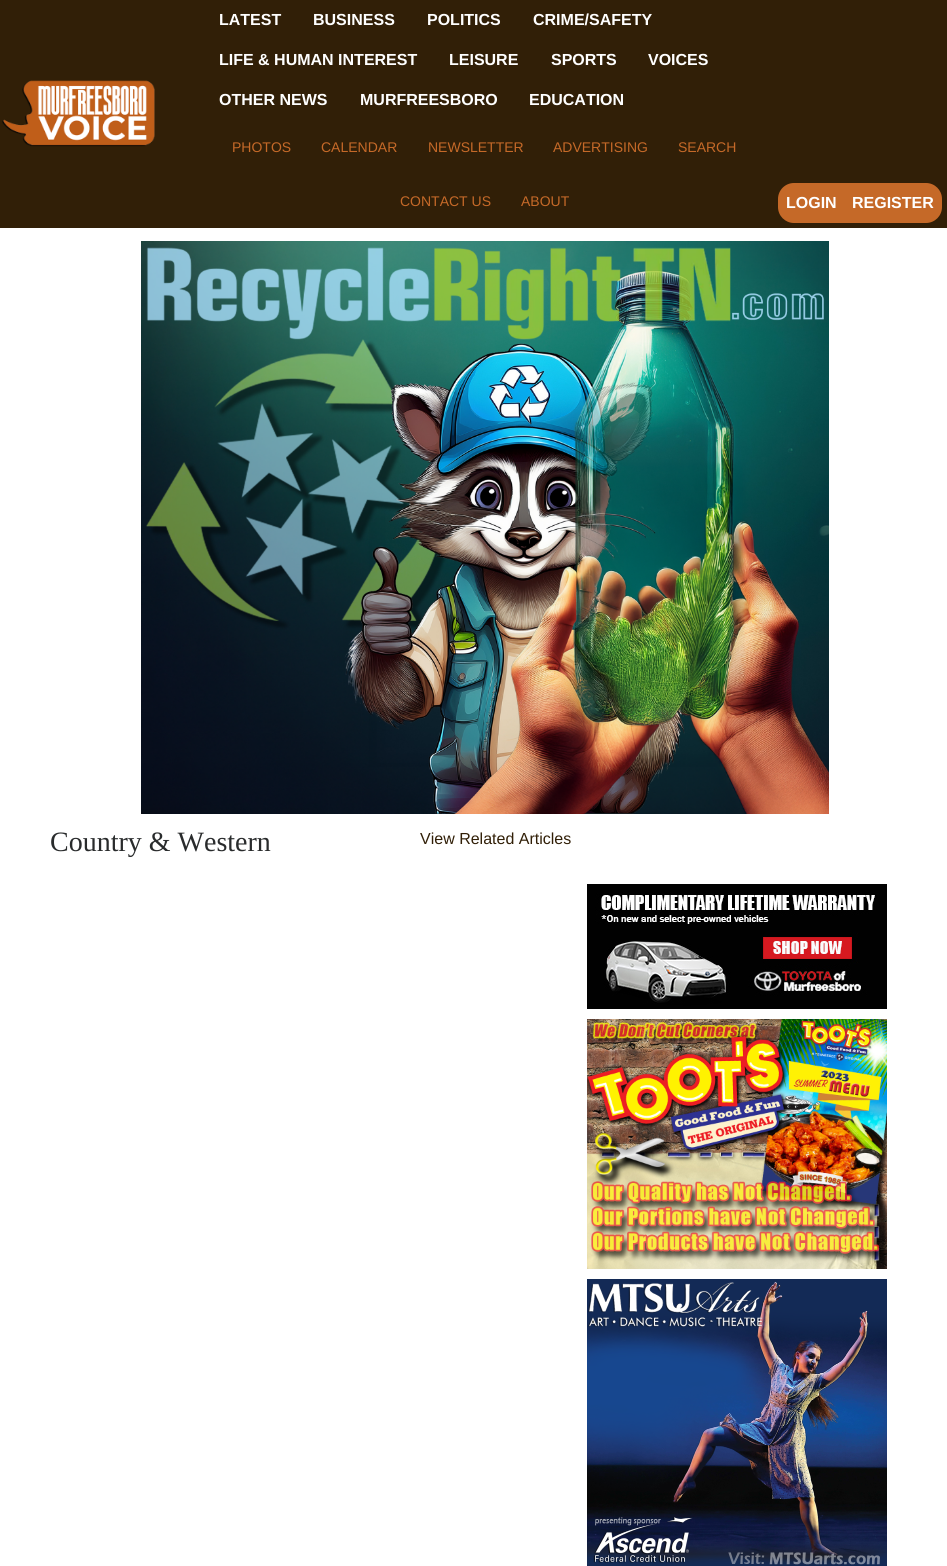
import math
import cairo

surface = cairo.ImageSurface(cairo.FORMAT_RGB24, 947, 1566)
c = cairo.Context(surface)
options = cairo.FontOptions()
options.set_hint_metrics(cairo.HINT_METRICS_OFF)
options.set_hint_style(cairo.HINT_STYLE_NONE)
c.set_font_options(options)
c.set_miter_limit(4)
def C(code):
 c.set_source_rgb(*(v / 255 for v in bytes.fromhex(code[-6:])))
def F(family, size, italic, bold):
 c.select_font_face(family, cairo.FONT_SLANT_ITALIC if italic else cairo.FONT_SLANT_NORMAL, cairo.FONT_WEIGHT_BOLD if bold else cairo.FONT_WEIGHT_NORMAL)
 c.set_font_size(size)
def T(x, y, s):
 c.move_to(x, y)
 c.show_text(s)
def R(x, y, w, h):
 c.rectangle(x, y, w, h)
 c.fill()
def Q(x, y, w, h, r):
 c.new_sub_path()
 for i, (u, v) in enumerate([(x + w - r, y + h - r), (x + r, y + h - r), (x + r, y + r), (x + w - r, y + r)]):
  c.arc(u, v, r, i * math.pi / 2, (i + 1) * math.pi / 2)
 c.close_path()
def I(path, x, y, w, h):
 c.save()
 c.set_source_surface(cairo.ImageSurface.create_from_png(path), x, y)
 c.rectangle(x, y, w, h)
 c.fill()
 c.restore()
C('ffffff')
c.paint()
C('311f07')
R(0,0,947,228)
I('1.png',2,80,153,67)
F('Liberation Sans',16,0,1)
C('ffffff')
T(219,25,'LATEST')
T(313,25,'BUSINESS')
T(427,25,'POLITICS')
T(533,25,'CRIME/SAFETY')
T(219,65,'LIFE & HUMAN INTEREST')
T(449,65,'LEISURE')
T(551,65,'SPORTS')
T(648,65,'VOICES')
T(219,105,'OTHER NEWS')
T(360,105,'MURFREESBORO')
T(529,105,'EDUCATION')
F('Liberation Sans',14,0,0)
C('c56928')
T(232,152,'PHOTOS')
T(321,152,'CALENDAR')
T(428,152,'NEWSLETTER')
T(553,152,'ADVERTISING')
T(678,152,'SEARCH')
T(400,206,'CONTACT US')
T(521,206,'ABOUT')
Q(778,183,164,40,16)
c.fill()
F('Liberation Sans',16,0,1)
C('ffffff')
T(786,208,'LOGIN')
T(852,208,'REGISTER')
I('2.png',141,241,688,573)
F('Liberation Serif',28,0,0)
C('292b2c')
T(50,851,'Country & Western')
F('Liberation Sans',16,0,0)
C('311f07')
T(420,844,'View Related Articles')
I('3.png',587,884,300,125)
I('4.png',587,1019,300,250)
I('5.png',587,1279,300,287)
surface.write_to_png('o.png')
